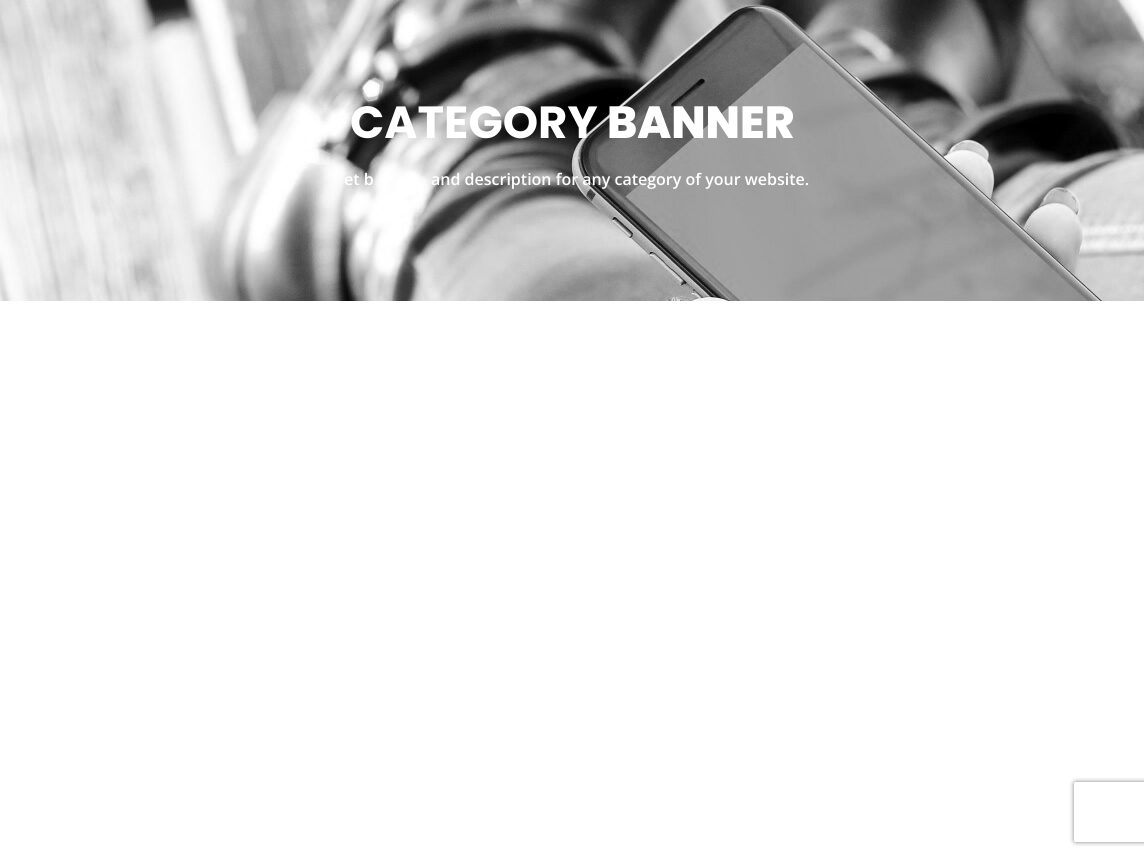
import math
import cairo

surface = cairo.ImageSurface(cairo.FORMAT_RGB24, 1144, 856)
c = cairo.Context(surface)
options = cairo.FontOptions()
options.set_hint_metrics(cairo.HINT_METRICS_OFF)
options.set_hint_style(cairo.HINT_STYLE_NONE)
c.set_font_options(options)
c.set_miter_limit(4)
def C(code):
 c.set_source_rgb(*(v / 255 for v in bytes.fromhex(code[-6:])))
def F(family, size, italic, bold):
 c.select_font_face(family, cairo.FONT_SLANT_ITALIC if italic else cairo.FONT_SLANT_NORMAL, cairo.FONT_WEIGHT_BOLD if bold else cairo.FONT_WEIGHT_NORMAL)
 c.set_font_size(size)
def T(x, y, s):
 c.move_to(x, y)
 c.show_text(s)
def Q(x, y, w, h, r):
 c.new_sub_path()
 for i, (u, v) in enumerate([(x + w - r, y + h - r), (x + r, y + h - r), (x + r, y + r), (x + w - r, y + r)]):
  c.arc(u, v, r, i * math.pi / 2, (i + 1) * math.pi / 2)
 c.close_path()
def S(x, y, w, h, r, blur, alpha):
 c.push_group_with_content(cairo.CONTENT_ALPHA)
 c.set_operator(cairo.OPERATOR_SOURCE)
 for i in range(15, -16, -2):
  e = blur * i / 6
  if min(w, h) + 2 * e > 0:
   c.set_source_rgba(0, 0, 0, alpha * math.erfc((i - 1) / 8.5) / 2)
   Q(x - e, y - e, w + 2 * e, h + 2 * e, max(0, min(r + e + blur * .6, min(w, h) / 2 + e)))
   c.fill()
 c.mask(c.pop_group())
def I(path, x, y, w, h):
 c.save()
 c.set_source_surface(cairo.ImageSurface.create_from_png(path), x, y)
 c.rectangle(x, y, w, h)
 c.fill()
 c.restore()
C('ffffff')
c.paint()
I('1.png',0,0,1144,301)
F('Poppins',45,0,1)
C('ffffff')
T(350,138,'CATEGORY')
F('Poppins ExtraBold',45,0,0)
T(607,138,'BANNER')
F('Open Sans SemiBold',16,0,0)
T(344,185,'et b')
T(431,185,'and description for any category of your website.')
c.save()
c.set_fill_rule(cairo.FILL_RULE_EVEN_ODD)
c.new_path()
c.move_to(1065,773)
c.line_to(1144,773)
c.line_to(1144,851)
c.line_to(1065,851)
c.close_path()
c.move_to(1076,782)
c.line_to(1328,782)
c.curve_to(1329,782,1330,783,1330,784)
c.line_to(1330,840)
c.curve_to(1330,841,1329,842,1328,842)
c.line_to(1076,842)
c.curve_to(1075,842,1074,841,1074,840)
c.line_to(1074,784)
c.curve_to(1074,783,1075,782,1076,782)
c.close_path()
c.clip()
C('808080')
S(1074,782,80,60,2,2.5,1)
c.restore()
surface.write_to_png('o.png')
